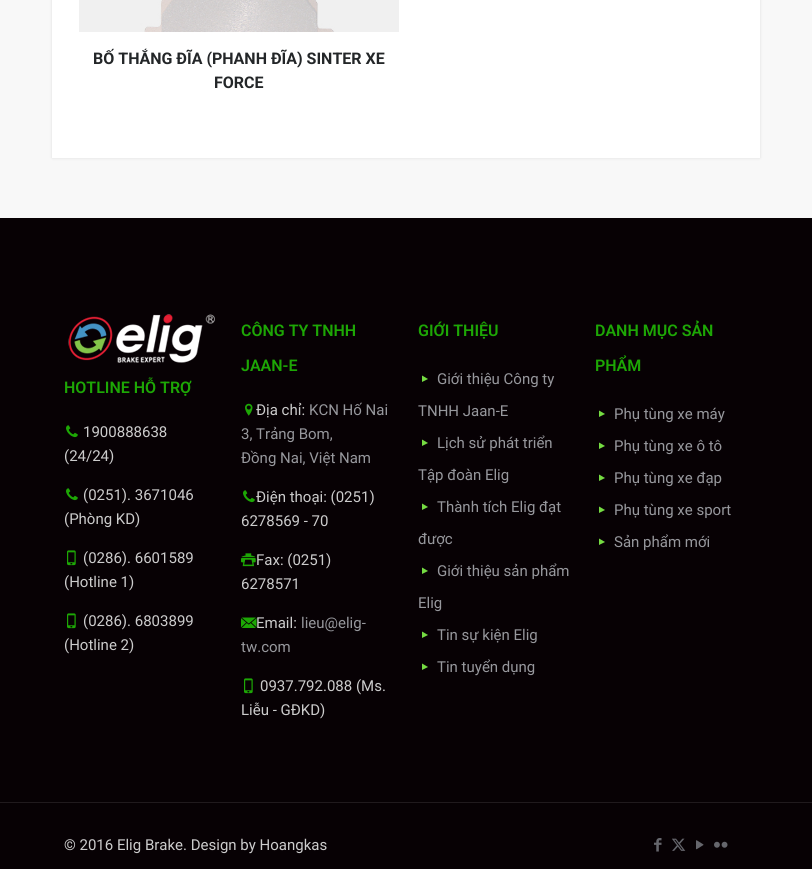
import math
import cairo

surface = cairo.ImageSurface(cairo.FORMAT_RGB24, 812, 869)
c = cairo.Context(surface)
options = cairo.FontOptions()
options.set_hint_metrics(cairo.HINT_METRICS_OFF)
options.set_hint_style(cairo.HINT_STYLE_NONE)
c.set_font_options(options)
c.set_miter_limit(4)
def C(code):
 c.set_source_rgb(*(v / 255 for v in bytes.fromhex(code[-6:])))
def F(family, size, italic, bold):
 c.select_font_face(family, cairo.FONT_SLANT_ITALIC if italic else cairo.FONT_SLANT_NORMAL, cairo.FONT_WEIGHT_BOLD if bold else cairo.FONT_WEIGHT_NORMAL)
 c.set_font_size(size)
def T(x, y, s):
 c.move_to(x, y)
 c.show_text(s)
def R(x, y, w, h):
 c.rectangle(x, y, w, h)
 c.fill()
def Q(x, y, w, h, r):
 c.new_sub_path()
 for i, (u, v) in enumerate([(x + w - r, y + h - r), (x + r, y + h - r), (x + r, y + r), (x + w - r, y + r)]):
  c.arc(u, v, r, i * math.pi / 2, (i + 1) * math.pi / 2)
 c.close_path()
def S(x, y, w, h, r, blur, alpha):
 c.push_group_with_content(cairo.CONTENT_ALPHA)
 c.set_operator(cairo.OPERATOR_SOURCE)
 for i in range(15, -16, -2):
  e = blur * i / 6
  if min(w, h) + 2 * e > 0:
   c.set_source_rgba(0, 0, 0, alpha * math.erfc((i - 1) / 8.5) / 2)
   Q(x - e, y - e, w + 2 * e, h + 2 * e, max(0, min(r + e + blur * .6, min(w, h) / 2 + e)))
   c.fill()
 c.mask(c.pop_group())
def I(path, x, y, w, h):
 c.save()
 c.set_source_surface(cairo.ImageSurface.create_from_png(path), x, y)
 c.rectangle(x, y, w, h)
 c.fill()
 c.restore()
C('f8f8f8')
c.paint()
C('000000')
S(52,-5,708,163,0,1.5,.1)
C('ffffff')
R(52,0,708,158)
I('1.png',79,0,320,32)
F('Roboto',16,0,1)
C('232628')
T(93,64,'BỐ THẮNG ĐĨA (PHANH ĐĨA) SINTER XE')
T(214,88,'FORCE')
C('070104')
R(0,218,812,651)
I('2.png',68,314,147,49)
F('Roboto SemiBold',16,0,0)
C('1da705')
T(64,393,'HOTLINE HỖ TRỢ')
I('3.png',66,425,12,13)
F('Roboto',15,0,0)
C('cccccc')
T(83,437,'1900888638')
T(64,461,'(24/24)')
I('3.png',66,488,12,13)
T(83,500,'(0251). 3671046')
T(64,524,'(Phòng KD)')
I('4.png',67,550,9,16)
T(83,563,'(0286). 6601589')
T(64,587,'(Hotline 1)')
I('4.png',67,613,9,16)
T(83,626,'(0286). 6803899')
T(64,650,'(Hotline 2)')
F('Roboto SemiBold',16,0,0)
C('1da705')
T(241,336,'CÔNG TY TNHH')
T(241,371,'JAAN-E')
I('5.png',245,403,8,13)
F('Roboto',15,0,0)
C('cccccc')
T(256,415,'Địa chỉ:')
C('97989d')
T(309,415,'KCN Hố Nai')
T(241,439,'3, Trảng Bom,')
T(241,463,'Đồng Nai, Việt Nam')
I('3.png',243,490,12,13)
C('cccccc')
T(256,502,'Điện thoại: (0251)')
T(241,526,'6278569 - 70')
I('6.png',241,553,15,14)
T(256,565,'Fax: (0251)')
T(241,589,'6278571')
I('7.png',241,617,16,11)
T(256,628,'Email:')
C('97989d')
T(301,628,'lieu@elig-')
T(241,652,'tw.com')
I('4.png',244,678,9,16)
C('cccccc')
T(260,691,'0937.792.088 (Ms.')
T(241,715,'Liễu - GĐKD)')
F('Roboto SemiBold',16,0,0)
C('1da705')
T(418,336,'GIỚI THIỆU')
C('75dc42')
c.new_path()
c.move_to(422,375.5)
c.line_to(428,379)
c.line_to(422,382)
c.close_path()
c.fill()
F('Roboto',15,0,0)
C('97989d')
T(437,384,'Giới thiệu Công ty')
T(418,416,'TNHH Jaan-E')
C('75dc42')
c.new_path()
c.move_to(422,439.5)
c.line_to(428,443)
c.line_to(422,446)
c.close_path()
c.fill()
C('97989d')
T(437,448,'Lịch sử phát triển')
T(418,480,'Tập đoàn Elig')
C('75dc42')
c.new_path()
c.move_to(422,503.5)
c.line_to(428,507)
c.line_to(422,510)
c.close_path()
c.fill()
C('97989d')
T(437,512,'Thành tích Elig đạt')
T(418,544,'được')
C('75dc42')
c.new_path()
c.move_to(422,567.5)
c.line_to(428,571)
c.line_to(422,574)
c.close_path()
c.fill()
C('97989d')
T(437,576,'Giới thiệu sản phẩm')
T(418,608,'Elig')
C('75dc42')
c.new_path()
c.move_to(422,631.5)
c.line_to(428,635)
c.line_to(422,638)
c.close_path()
c.fill()
C('97989d')
T(437,640,'Tin sự kiện Elig')
C('75dc42')
c.new_path()
c.move_to(422,663.5)
c.line_to(428,667)
c.line_to(422,670)
c.close_path()
c.fill()
C('97989d')
T(437,672,'Tin tuyển dụng')
F('Roboto SemiBold',16,0,0)
C('1da705')
T(595,336,'DANH MỤC SẢN')
T(595,371,'PHẨM')
C('75dc42')
c.new_path()
c.move_to(599,410.5)
c.line_to(605,414)
c.line_to(599,417)
c.close_path()
c.fill()
F('Roboto',15,0,0)
C('97989d')
T(614,419,'Phụ tùng xe máy')
C('75dc42')
c.new_path()
c.move_to(599,442.5)
c.line_to(605,446)
c.line_to(599,449)
c.close_path()
c.fill()
C('97989d')
T(614,451,'Phụ tùng xe ô tô')
C('75dc42')
c.new_path()
c.move_to(599,474.5)
c.line_to(605,478)
c.line_to(599,481)
c.close_path()
c.fill()
C('97989d')
T(614,483,'Phụ tùng xe đạp')
C('75dc42')
c.new_path()
c.move_to(599,506.5)
c.line_to(605,510)
c.line_to(599,513)
c.close_path()
c.fill()
C('97989d')
T(614,515,'Phụ tùng xe sport')
C('75dc42')
c.new_path()
c.move_to(599,538.5)
c.line_to(605,542)
c.line_to(599,545)
c.close_path()
c.fill()
C('97989d')
T(614,547,'Sản phẩm mới')
C('201a1d')
R(0,802,812,1)
C('cccccc')
T(64,850,'© 2016 Elig Brake. Design by Hoangkas')
I('8.png',654,838,8,14)
I('9.png',672,838,14,13)
I('10.png',696,840,8,10)
I('11.png',714,841,14,7)
surface.write_to_png('o.png')
